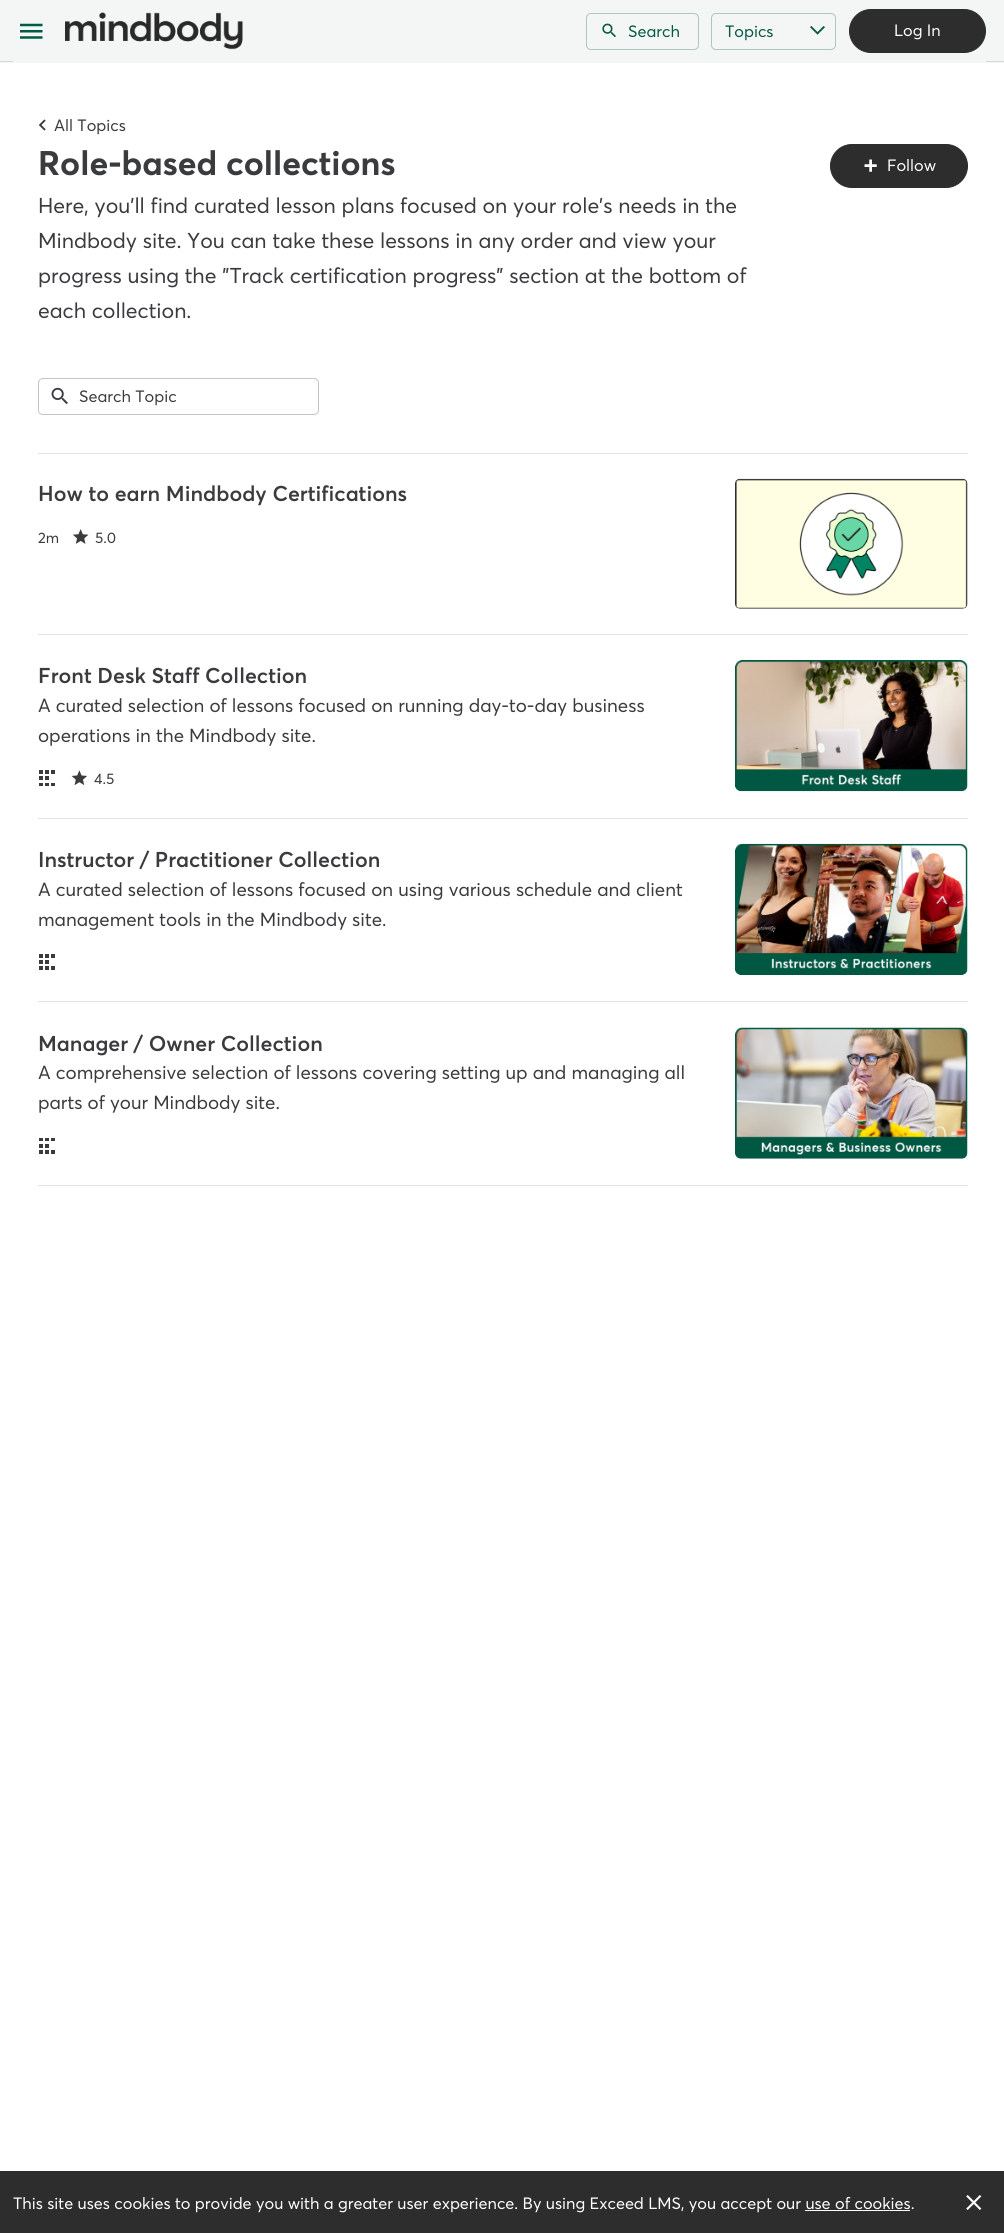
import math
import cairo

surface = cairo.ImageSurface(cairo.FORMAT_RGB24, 1004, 2233)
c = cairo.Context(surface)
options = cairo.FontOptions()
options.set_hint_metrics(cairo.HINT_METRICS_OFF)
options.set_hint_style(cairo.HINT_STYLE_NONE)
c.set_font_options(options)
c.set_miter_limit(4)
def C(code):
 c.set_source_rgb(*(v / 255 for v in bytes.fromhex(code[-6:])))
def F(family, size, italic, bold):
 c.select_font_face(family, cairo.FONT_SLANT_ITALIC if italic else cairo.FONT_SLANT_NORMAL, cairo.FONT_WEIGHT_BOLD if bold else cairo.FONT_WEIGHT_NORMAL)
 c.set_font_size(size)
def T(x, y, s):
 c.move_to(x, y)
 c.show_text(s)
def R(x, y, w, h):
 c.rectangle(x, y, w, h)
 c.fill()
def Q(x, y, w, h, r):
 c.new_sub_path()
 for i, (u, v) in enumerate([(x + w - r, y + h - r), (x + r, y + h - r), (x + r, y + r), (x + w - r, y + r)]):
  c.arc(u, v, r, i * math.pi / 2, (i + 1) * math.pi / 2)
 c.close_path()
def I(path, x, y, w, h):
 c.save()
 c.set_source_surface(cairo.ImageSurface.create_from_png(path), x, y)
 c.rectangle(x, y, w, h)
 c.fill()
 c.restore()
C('ffffff')
c.paint()
C('f4f5f5')
R(0,0,1004,63)
C('d5d6d6')
R(0,61,1004,1)
C('f4f5f5')
R(13,61,973,1)
I('1.png',20,23,23,16)
I('2.png',65,12,178,38)
Q(586.5,13.5,112,36,4.5)
C('acc6c0')
c.set_line_width(1)
c.stroke()
I('3.png',602,23,14,15)
F('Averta',16.25,0,0)
C('045944')
T(628,37,'Search')
Q(711.5,13.5,124,36,4.5)
C('acc6c0')
c.stroke()
C('045944')
T(725,37,'Topics')
I('4.png',810,26,15,9)
C('2d2d2d')
Q(849.5,9.5,136,43,21.5)
c.fill_preserve()
c.stroke()
C('ffffff')
T(894,36,'Log In')
I('5.png',38,119,8,12)
C('393b3d')
T(54,131,'All Topics')
F('Averta',33.75,0,1)
T(38,175,'Role-based collections')
F('Averta',21.25,0,0)
T(38,213,'Here, you\'ll find curated lesson plans focused on your role\'s needs in the')
T(38,248,'Mindbody site. You can take these lessons in any order and view your')
T(38,283,'progress using the "Track certification progress" section at the bottom of')
T(38,318,'each collection.')
C('2d2d2d')
Q(830.5,144.5,137,43,21.5)
c.fill_preserve()
c.stroke()
I('6.png',864,159,13,13)
F('Averta',16.25,0,0)
C('ffffff')
T(887,171,'Follow')
Q(38.5,378.5,280,36,4.5)
C('c4c4c5')
c.stroke()
I('7.png',51,387,17,18)
C('393b3d')
T(79,402,'Search Topic')
C('e4e4e4')
R(38,453,930,1)
R(38,634,930,1)
F('Averta SemiBold',21.25,0,0)
C('393b3d')
T(38,501,'How to earn Mindbody Certifications')
F('Averta',15,0,0)
T(38,543,'2m')
I('8.png',73,529,16,15)
T(95,543,'5.0')
I('9.png',735,478,233,131)
C('e4e4e4')
R(38,818,930,1)
F('Averta SemiBold',21.25,0,0)
C('393b3d')
T(38,683,'Front Desk Staff Collection')
F('Averta',18.75,0,0)
T(38,712,'A curated selection of lessons focused on running day-to-day business')
T(38,742,'operations in the Mindbody site.')
I('10.png',39,770,16,16)
I('11.png',71,770,16,15)
F('Averta',15,0,0)
T(94,784,'4.5')
I('12.png',735,660,233,132)
C('e4e4e4')
R(38,1001,930,1)
F('Averta SemiBold',21.25,0,0)
C('393b3d')
T(38,867,'Instructor / Practitioner Collection')
F('Averta',18.75,0,0)
T(38,896,'A curated selection of lessons focused on using various schedule and client')
T(38,926,'management tools in the Mindbody site.')
I('13.png',39,954,16,16)
I('14.png',735,843,233,132)
C('e4e4e4')
R(38,1185,930,1)
F('Averta SemiBold',21.25,0,0)
C('393b3d')
T(38,1051,'Manager / Owner Collection')
F('Averta',18.75,0,0)
T(38,1079,'A comprehensive selection of lessons covering setting up and managing all')
T(38,1109,'parts of your Mindbody site.')
I('15.png',39,1138,16,16)
I('16.png',735,1027,233,132)
C('2d2d2d')
R(0,2171,1004,62)
F('Averta',16.25,0,0)
C('ffffff')
T(13,2209,'This site uses cookies to provide you with a greater user experience. By using Exceed LMS, you accept our use of cookies.')
R(805,2210,105,1)
I('17.png',966,2195,16,15)
surface.write_to_png('o.png')
